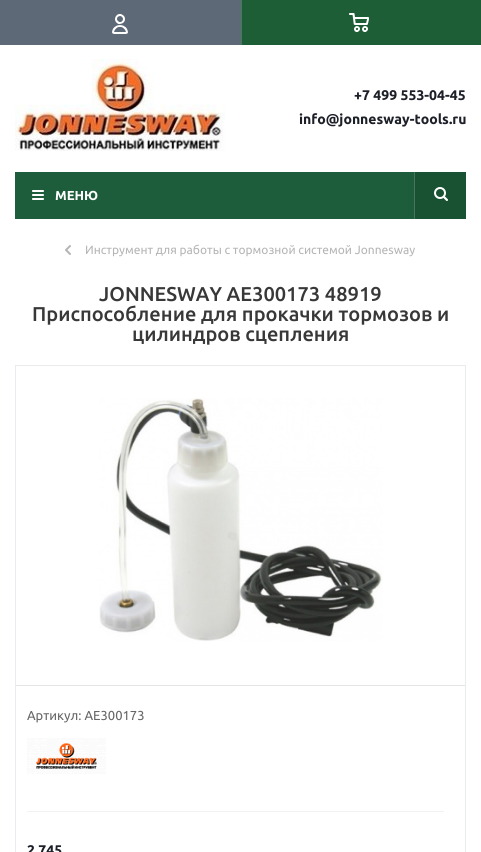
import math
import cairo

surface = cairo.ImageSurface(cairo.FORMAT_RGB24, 481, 852)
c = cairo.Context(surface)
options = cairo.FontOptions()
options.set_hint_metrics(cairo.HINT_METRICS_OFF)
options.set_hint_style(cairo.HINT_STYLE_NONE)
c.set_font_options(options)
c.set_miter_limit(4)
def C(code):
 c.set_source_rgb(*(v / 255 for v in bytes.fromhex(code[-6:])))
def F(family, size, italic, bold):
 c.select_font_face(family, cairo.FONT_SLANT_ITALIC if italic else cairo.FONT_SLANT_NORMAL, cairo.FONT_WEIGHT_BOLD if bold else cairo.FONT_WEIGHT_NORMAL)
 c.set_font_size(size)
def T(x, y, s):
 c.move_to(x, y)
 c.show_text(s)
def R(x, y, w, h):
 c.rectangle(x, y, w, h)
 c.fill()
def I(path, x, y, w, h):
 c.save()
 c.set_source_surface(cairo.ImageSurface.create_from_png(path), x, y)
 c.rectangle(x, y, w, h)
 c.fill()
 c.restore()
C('ffffff')
c.paint()
I('1.png',15,59,210,92)
C('5e6978')
R(0,0,241,45)
I('2.png',112,14,16,20)
C('1d5e36')
R(242,0,239,45)
C('457b5c')
R(241,0,1,45)
I('3.png',349,13,20,19)
F('Ubuntu',14,0,1)
C('1d2029')
T(354,100,'+7 499 553-04-45')
T(299,124,'info@jonnesway-tools.ru')
C('1d5d3b')
R(15,172,399,47)
I('4.png',32,190,12,10)
F('Ubuntu',13,0,1)
C('ffffff')
T(55,200,'МЕНЮ')
C('195233')
R(415,172,51,47)
C('47755c')
R(414,172,1,47)
I('5.png',434,187,14,14)
I('6.png',65,245,6,10)
F('Ubuntu',12,0,0)
C('b6b5b5')
T(85,254,'Инструмент для работы с тормозной системой Jonnesway')
F('Ubuntu Medium',20,0,0)
C('383838')
T(99,301,'JONNESWAY AE300173 48919')
T(32,321,'Приспособление для прокачки тормозов и')
T(132,341,'цилиндров сцепления')
c.rectangle(15.5,365.5,450,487)
C('eaebec')
c.set_line_width(1)
c.stroke()
I('7.png',99,398,284,243)
C('e5e5e5')
R(16,685,449,1)
C('f2f2f2')
R(27,811,417,1)
F('Ubuntu',13,0,0)
C('666666')
T(27,720,'Артикул: AE300173')
I('8.png',27,738,79,36)
F('Ubuntu',14,0,1)
C('1d2029')
T(27,855,'2 745')
surface.write_to_png('o.png')
